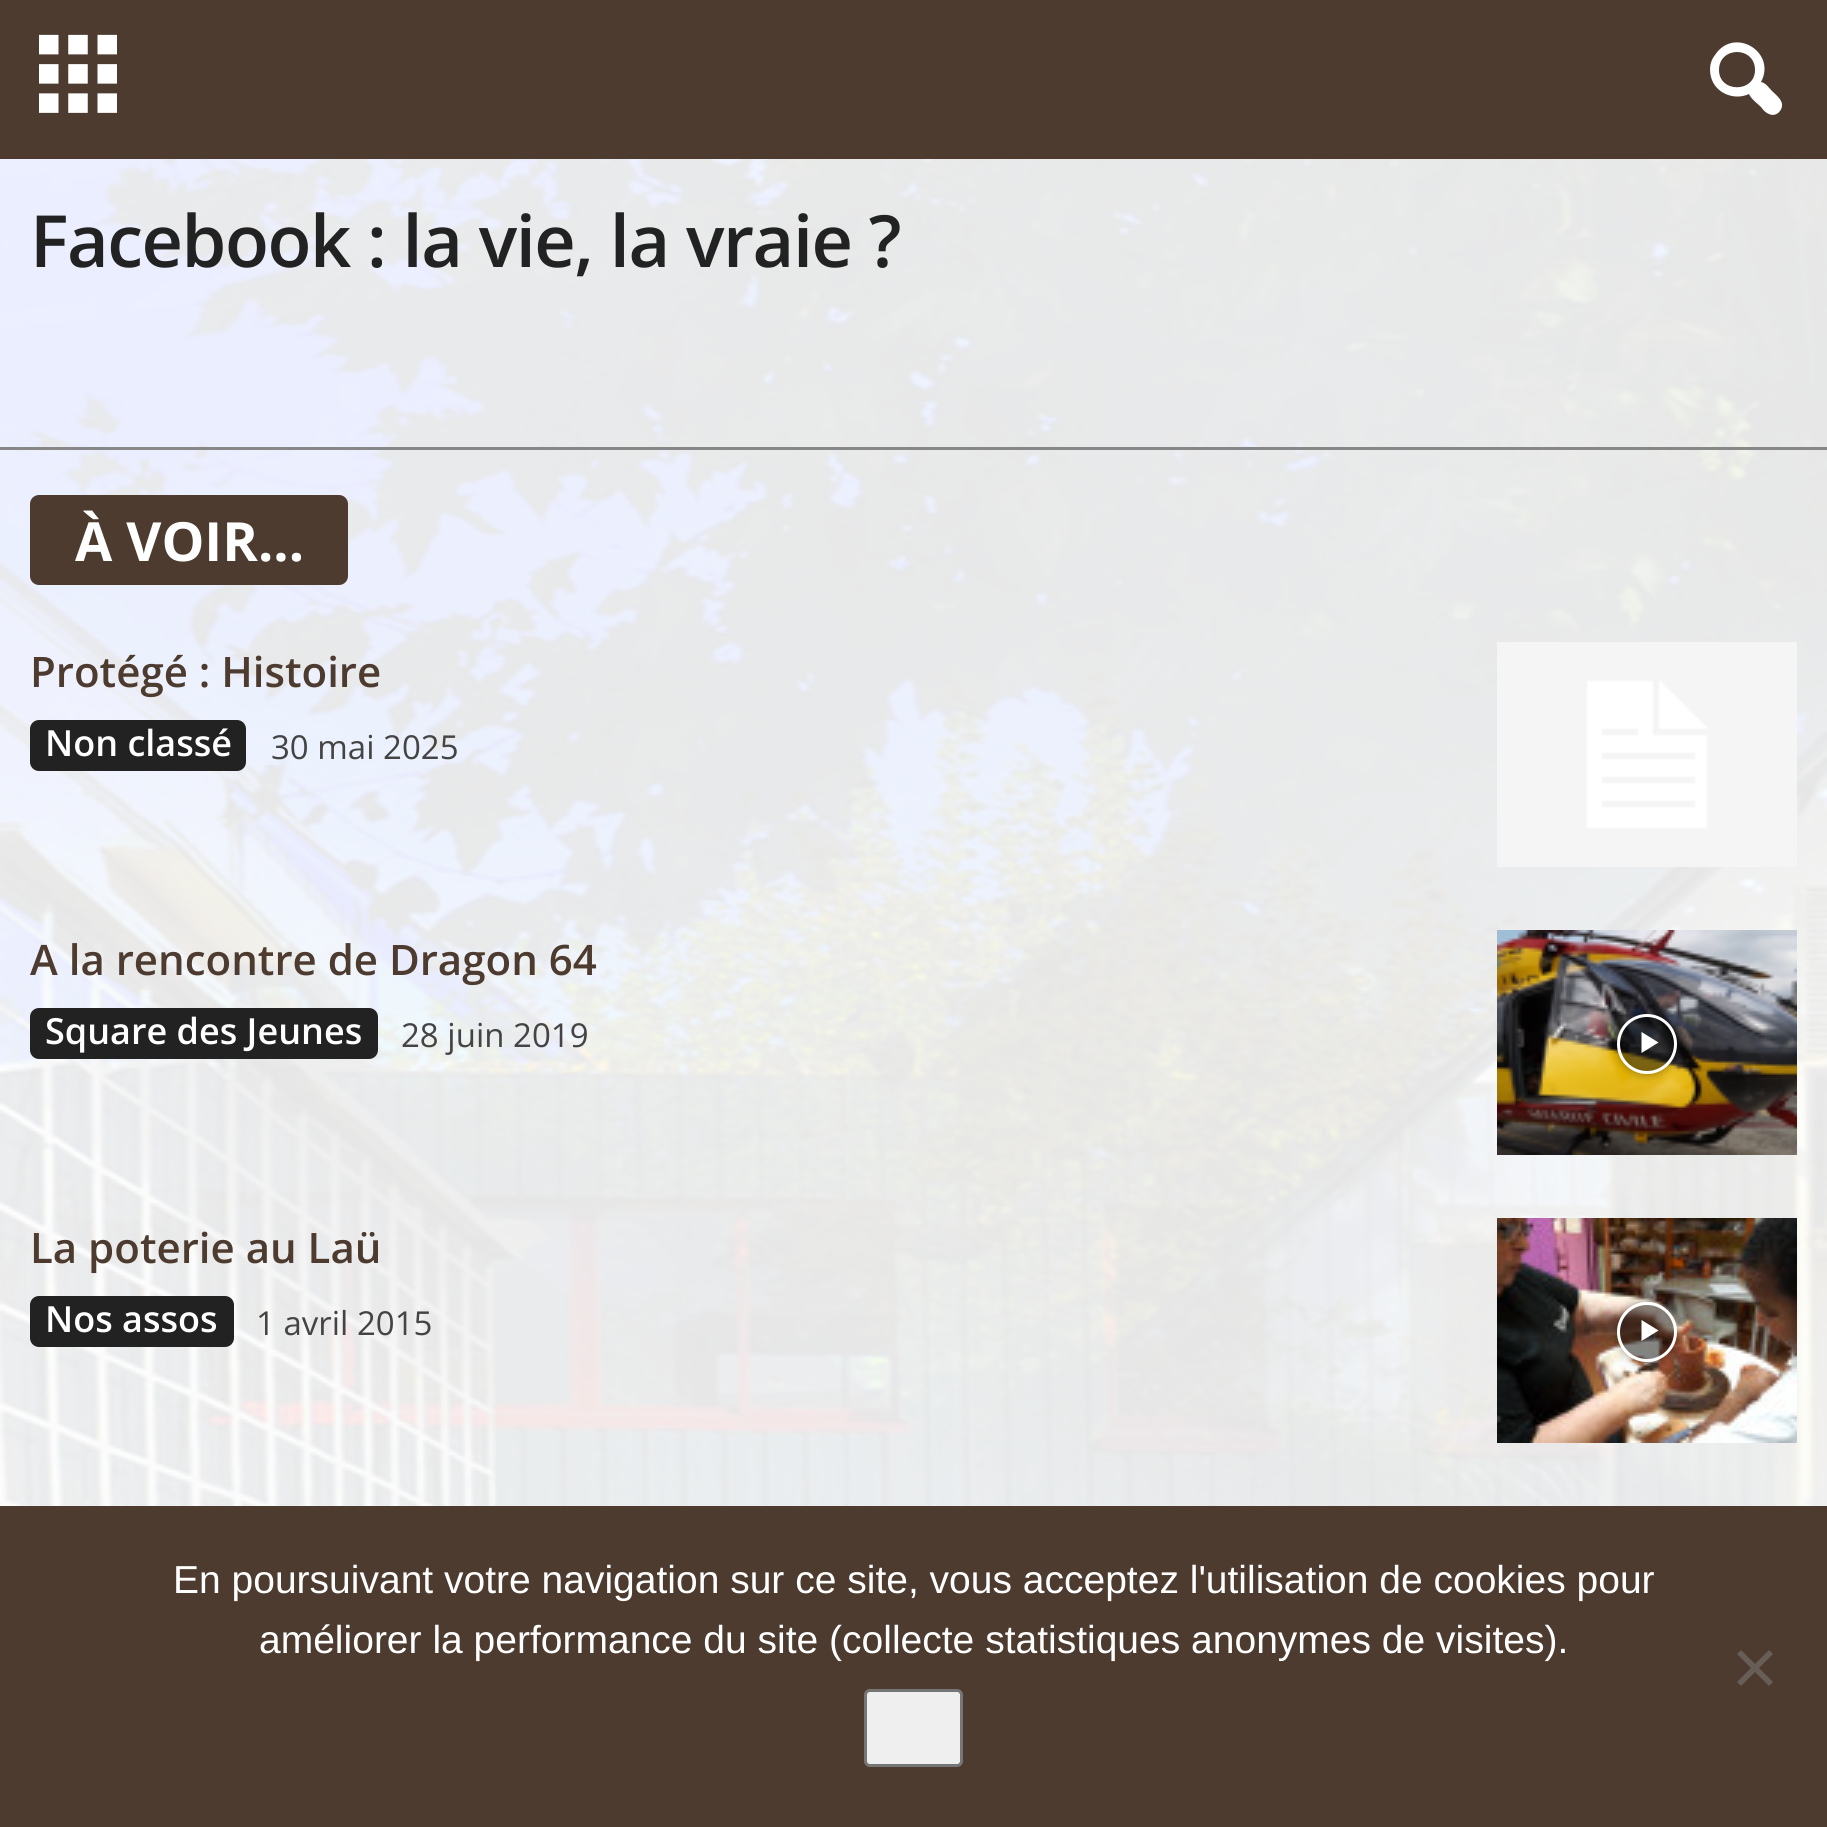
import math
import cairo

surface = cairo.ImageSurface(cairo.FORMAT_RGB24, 1827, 1827)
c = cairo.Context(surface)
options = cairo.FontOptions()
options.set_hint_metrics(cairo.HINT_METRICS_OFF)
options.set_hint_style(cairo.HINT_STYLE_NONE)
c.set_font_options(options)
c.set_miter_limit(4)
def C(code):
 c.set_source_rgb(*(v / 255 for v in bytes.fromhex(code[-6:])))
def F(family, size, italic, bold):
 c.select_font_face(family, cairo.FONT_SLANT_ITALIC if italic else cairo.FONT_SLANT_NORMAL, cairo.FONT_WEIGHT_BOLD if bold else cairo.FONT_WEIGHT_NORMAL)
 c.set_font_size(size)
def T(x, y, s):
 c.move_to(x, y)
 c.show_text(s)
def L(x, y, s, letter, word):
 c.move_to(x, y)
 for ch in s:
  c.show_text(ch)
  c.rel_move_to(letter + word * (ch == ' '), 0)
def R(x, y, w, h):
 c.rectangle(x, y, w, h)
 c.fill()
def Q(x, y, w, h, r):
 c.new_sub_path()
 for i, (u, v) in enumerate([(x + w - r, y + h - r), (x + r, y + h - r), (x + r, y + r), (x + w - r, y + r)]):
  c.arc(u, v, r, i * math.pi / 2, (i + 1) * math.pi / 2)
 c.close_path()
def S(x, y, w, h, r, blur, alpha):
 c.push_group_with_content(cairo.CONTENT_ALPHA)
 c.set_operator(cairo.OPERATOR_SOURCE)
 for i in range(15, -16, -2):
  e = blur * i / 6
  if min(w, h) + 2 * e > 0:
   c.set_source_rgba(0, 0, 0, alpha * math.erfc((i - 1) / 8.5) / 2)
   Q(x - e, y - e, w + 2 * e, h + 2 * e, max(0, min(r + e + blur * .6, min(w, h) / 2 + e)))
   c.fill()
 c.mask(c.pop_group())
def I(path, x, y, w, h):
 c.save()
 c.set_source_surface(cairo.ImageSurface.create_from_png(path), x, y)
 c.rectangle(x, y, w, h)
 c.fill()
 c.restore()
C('ffffff')
c.paint()
I('1.png',0,159,1827,1347)
C('4d3b30')
R(0,0,1827,159)
I('2.png',39,34,78,79)
C('ffffff')
c.new_path()
c.move_to(1711,77)
c.curve_to(1709,69,1710,61,1715,55)
c.curve_to(1734,26,1777,52,1761,82)
c.curve_to(1766,83,1769,88,1772,91)
c.curve_to(1775,94,1779,97,1781,101)
c.curve_to(1785,108,1777,118,1769,114)
c.curve_to(1766,113,1763,110,1761,107)
c.curve_to(1758,104,1751,99,1749,94)
c.curve_to(1734,101,1715,93,1711,77)
c.close_path()
c.move_to(1719,70)
c.curve_to(1719,93,1755,93,1755,70)
c.curve_to(1755,46,1719,46,1719,70)
c.close_path()
c.fill()
F('Open Sans SemiBold',72,0,0)
C('222222')
L(30,267,'Facebook : la vie, la vraie ?',-1.45,0)
C('878787')
R(0,447,1827,3)
C('4d3b30')
Q(30,495,318,90,9)
c.fill()
F('Open Sans',54,0,1)
C('ffffff')
T(75,561,'À VOIR...')
F('Open Sans SemiBold',42,0,0)
C('4d3b30')
T(30,687,'Protégé : Histoire')
C('222222')
Q(30,720,216,51,9)
c.fill()
F('Open Sans SemiBold',36,0,0)
C('ffffff')
T(45,756,'Non classé')
F('Open Sans',33,0,0)
C('444444')
T(271,759,'30 mai 2025')
I('3.png',1497,642,300,225)
F('Open Sans SemiBold',42,0,0)
C('4d3b30')
T(30,975,'A la rencontre de Dragon 64')
C('222222')
Q(30,1008,348,51,9)
c.fill()
F('Open Sans SemiBold',36,0,0)
C('ffffff')
T(45,1044,'Square des Jeunes')
F('Open Sans',33,0,0)
C('444444')
T(401,1047,'28 juin 2019')
I('4.png',1497,930,300,225)
c.save()
c.set_fill_rule(cairo.FILL_RULE_EVEN_ODD)
c.new_path()
c.move_to(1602,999)
c.line_to(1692,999)
c.line_to(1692,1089)
c.line_to(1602,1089)
c.close_path()
c.move_to(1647,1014)
c.curve_to(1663.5,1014,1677,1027.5,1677,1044)
c.curve_to(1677,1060.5,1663.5,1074,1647,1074)
c.curve_to(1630.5,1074,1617,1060.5,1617,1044)
c.curve_to(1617,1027.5,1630.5,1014,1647,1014)
c.close_path()
c.clip()
C('000000')
S(1617,1014,60,60,30,4.5,.4)
c.restore()
c.set_source_rgba(0,0,0,0.48)
c.arc(1647,1044,28.5,0,2 * math.pi)
c.fill_preserve()
C('ffffff')
c.set_line_width(3)
c.stroke()
c.new_path()
c.move_to(1641.5,1032)
c.line_to(1641.5,1053)
c.line_to(1658.5,1042.5)
c.close_path()
c.fill()
F('Open Sans SemiBold',42,0,0)
C('4d3b30')
T(30,1263,'La poterie au Laü')
C('222222')
Q(30,1296,204,51,9)
c.fill()
F('Open Sans SemiBold',36,0,0)
C('ffffff')
T(45,1332,'Nos assos')
F('Open Sans',33,0,0)
C('444444')
T(256,1335,'1 avril 2015')
I('5.png',1497,1218,300,225)
c.save()
c.set_fill_rule(cairo.FILL_RULE_EVEN_ODD)
c.new_path()
c.move_to(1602,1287)
c.line_to(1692,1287)
c.line_to(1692,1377)
c.line_to(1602,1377)
c.close_path()
c.move_to(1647,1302)
c.curve_to(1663.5,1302,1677,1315.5,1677,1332)
c.curve_to(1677,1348.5,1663.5,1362,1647,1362)
c.curve_to(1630.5,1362,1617,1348.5,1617,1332)
c.curve_to(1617,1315.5,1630.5,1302,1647,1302)
c.close_path()
c.clip()
C('000000')
S(1617,1302,60,60,30,4.5,.4)
c.restore()
c.set_source_rgba(0,0,0,0.48)
c.arc(1647,1332,28.5,0,2 * math.pi)
c.fill_preserve()
C('ffffff')
c.stroke()
c.new_path()
c.move_to(1641.5,1320)
c.line_to(1641.5,1341)
c.line_to(1658.5,1330.5)
c.close_path()
c.fill()
C('4d3b30')
R(0,1506,1827,321)
F('Liberation Sans',39,0,0)
C('ffffff')
T(173,1593,'En poursuivant votre navigation sur ce site, vous acceptez l\'utilisation de cookies pour')
T(259,1653,'améliorer la performance du site (collecte statistiques anonymes de visites).')
C('675e58')
c.new_path()
c.move_to(1769,1650)
c.line_to(1773,1654)
c.line_to(1741,1686)
c.line_to(1737,1682)
c.close_path()
c.fill()
c.new_path()
c.move_to(1737,1654)
c.line_to(1741,1650)
c.line_to(1773,1682)
c.line_to(1769,1686)
c.close_path()
c.fill()
C('efefef')
Q(865.5,1690.5,96,75,4.5)
c.fill_preserve()
C('767676')
c.stroke()
surface.write_to_png('o.png')
